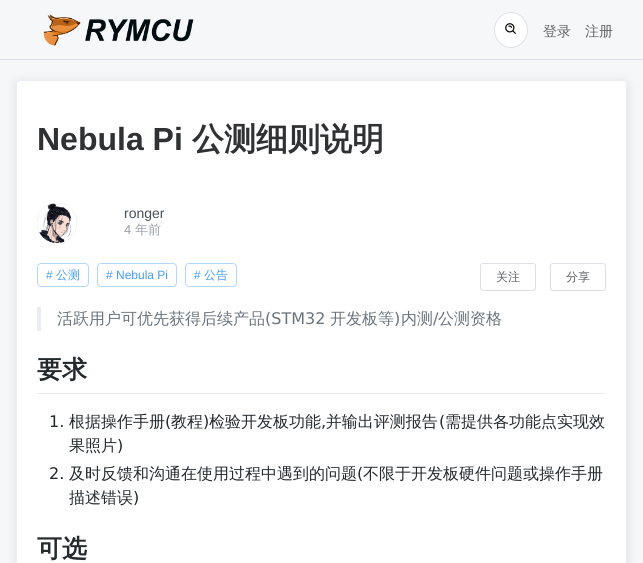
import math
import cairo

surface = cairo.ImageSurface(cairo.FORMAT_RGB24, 643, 563)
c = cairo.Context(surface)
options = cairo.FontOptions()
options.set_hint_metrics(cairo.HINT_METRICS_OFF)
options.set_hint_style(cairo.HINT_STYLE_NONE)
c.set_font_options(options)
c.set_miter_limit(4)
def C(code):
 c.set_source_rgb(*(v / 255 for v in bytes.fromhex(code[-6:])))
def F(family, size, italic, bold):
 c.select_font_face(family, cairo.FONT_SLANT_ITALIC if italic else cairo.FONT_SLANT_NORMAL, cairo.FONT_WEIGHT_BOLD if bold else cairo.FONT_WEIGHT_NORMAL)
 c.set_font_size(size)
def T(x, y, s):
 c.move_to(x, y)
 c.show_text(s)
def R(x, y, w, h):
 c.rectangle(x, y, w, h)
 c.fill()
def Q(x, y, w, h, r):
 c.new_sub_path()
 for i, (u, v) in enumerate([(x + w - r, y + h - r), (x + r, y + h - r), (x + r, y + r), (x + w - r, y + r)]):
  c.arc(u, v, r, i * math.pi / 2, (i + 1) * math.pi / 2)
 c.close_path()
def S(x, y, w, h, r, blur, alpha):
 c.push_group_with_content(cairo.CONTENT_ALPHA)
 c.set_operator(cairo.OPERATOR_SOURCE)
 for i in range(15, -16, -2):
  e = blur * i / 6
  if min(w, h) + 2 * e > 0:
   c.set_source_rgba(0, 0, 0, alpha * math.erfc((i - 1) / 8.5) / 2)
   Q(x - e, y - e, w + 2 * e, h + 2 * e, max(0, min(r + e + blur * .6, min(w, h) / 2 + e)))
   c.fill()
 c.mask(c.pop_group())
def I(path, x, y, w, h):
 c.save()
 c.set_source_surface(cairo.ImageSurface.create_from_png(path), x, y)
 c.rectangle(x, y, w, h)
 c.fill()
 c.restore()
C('f6f7f8')
c.paint()
C('d8dee6')
R(0,59,643,1)
I('1.png',43,14,151,32)
C('ffffff')
c.new_path()
c.move_to(511,12)
c.curve_to(520.5,12,528,20,528,30)
c.curve_to(528,40,520.5,48,511,48)
c.curve_to(501.5,48,494,40,494,30)
c.curve_to(494,20,501.5,12,511,12)
c.close_path()
c.fill()
c.new_path()
c.move_to(511,12.5)
c.curve_to(520,12.5,527.5,20.5,527.5,30)
c.curve_to(527.5,39.5,520,47.5,511,47.5)
c.curve_to(502,47.5,494.5,39.5,494.5,30)
c.curve_to(494.5,20.5,502,12.5,511,12.5)
c.close_path()
C('dcdfe6')
c.set_line_width(1)
c.stroke()
I('2.png',505,23,11,11)
F('WenQuanYi Zen Hei Medium',14,0,0)
C('606266')
T(543,36,'登录')
T(585,36,'注册')
C('000000')
S(16,82,611,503,4,6,.1)
C('ffffff')
Q(16.5,80.5,610,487,3.5)
c.fill_preserve()
C('ebeef5')
c.stroke()
F('Liberation Sans',32,0,1)
C('303133')
T(37,150,'Nebula Pi')
F('WenQuanYi Zen Hei',32,0,1)
T(192,150,'公测细则说明')
C('c0c4cc')
c.new_path()
c.arc(57,223,20,0,2 * math.pi)
c.fill()
I('3.png',37,203,40,40)
F('Liberation Sans',14,0,0)
C('495057')
T(124,218,'ronger')
F('Liberation Sans',13,0,0)
C('9aa0ac')
T(124,234,'4')
F('WenQuanYi Zen Hei Medium',13,0,0)
T(135,234,'年前')
Q(37.5,263.5,51,23,3.5)
C('b3d8ff')
c.stroke()
F('Liberation Sans',12,0,0)
C('409eff')
T(46,279,'#')
F('WenQuanYi Zen Hei Medium',12,0,0)
T(56,279,'公测')
Q(97.5,263.5,79,23,3.5)
C('b3d8ff')
c.stroke()
F('Liberation Sans',12,0,0)
C('409eff')
T(106,279,'# Nebula Pi')
Q(185.5,263.5,51,23,3.5)
C('b3d8ff')
c.stroke()
C('409eff')
T(194,279,'#')
F('WenQuanYi Zen Hei Medium',12,0,0)
T(204,279,'公告')
Q(480.5,263.5,55,27,2.5)
C('dcdfe6')
c.stroke()
C('606266')
T(496,281,'关注')
Q(550.5,263.5,55,27,2.5)
C('dcdfe6')
c.stroke()
C('606266')
T(566,281,'分享')
C('eaecef')
R(37,307,4,24)
F('WenQuanYi Zen Hei Medium',16,0,0)
C('6a737d')
T(57,324,'活跃用户可优先获得后续产品')
F('DejaVu Sans',16,0,0)
T(265,324,'(STM32')
F('WenQuanYi Zen Hei Medium',16,0,0)
T(330,324,'开发板等')
F('DejaVu Sans',16,0,0)
T(394,324,')')
F('WenQuanYi Zen Hei Medium',16,0,0)
T(401,324,'内测')
F('DejaVu Sans',16,0,0)
T(433,324,'/')
F('WenQuanYi Zen Hei Medium',16,0,0)
T(438,324,'公测资格')
C('eaecef')
R(37,393,569,1)
F('WenQuanYi Zen Hei',25,0,1)
C('24292e')
T(37,378,'要求')
F('DejaVu Sans',16,0,0)
T(49,427,'1.')
F('WenQuanYi Zen Hei Medium',16,0,0)
T(69,427,'根据操作手册')
F('DejaVu Sans',16,0,0)
T(165,427,'(')
F('WenQuanYi Zen Hei Medium',16,0,0)
T(171,427,'教程')
F('DejaVu Sans',16,0,0)
T(203,427,')')
F('WenQuanYi Zen Hei Medium',16,0,0)
T(209,427,'检验开发板功能 并输出评测报告')
F('DejaVu Sans',16,0,0)
T(439,427,'(')
F('WenQuanYi Zen Hei Medium',16,0,0)
T(445,427,'需提供各功能点实现效')
F('DejaVu Sans',16,0,0)
T(321,427,',')
F('WenQuanYi Zen Hei Medium',16,0,0)
T(69,451,'果照片')
F('DejaVu Sans',16,0,0)
T(117,451,')')
T(49,479,'2.')
F('WenQuanYi Zen Hei Medium',16,0,0)
T(69,479,'及时反馈和沟通在使用过程中遇到的问题')
F('DejaVu Sans',16,0,0)
T(357,479,'(')
F('WenQuanYi Zen Hei Medium',16,0,0)
T(363,479,'不限于开发板硬件问题或操作手册')
T(69,503,'描述错误')
F('DejaVu Sans',16,0,0)
T(133,503,')')
F('WenQuanYi Zen Hei',25,0,1)
T(37,557,'可选')
surface.write_to_png('o.png')
